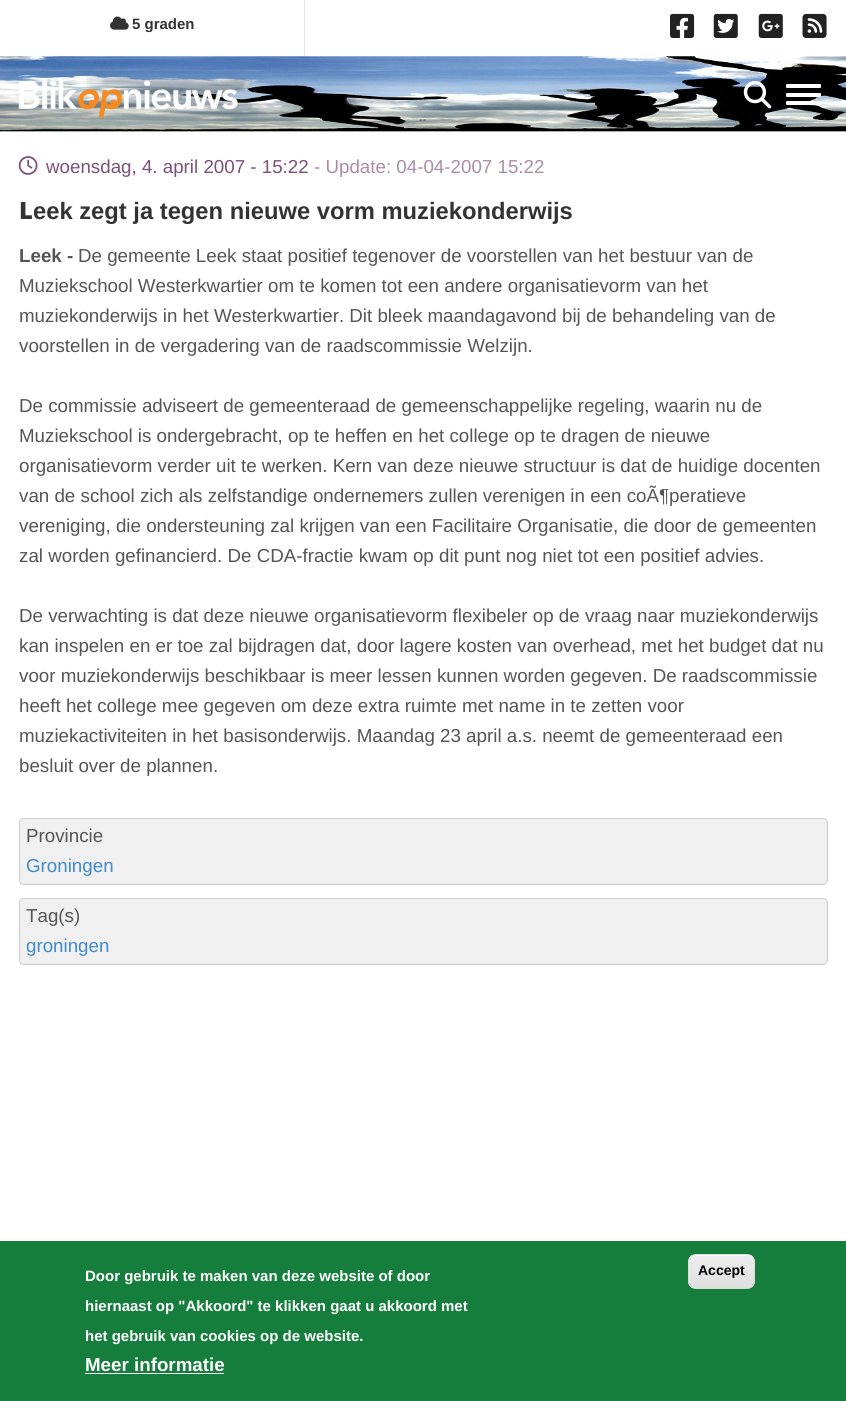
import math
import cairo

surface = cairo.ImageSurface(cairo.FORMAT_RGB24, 846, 1401)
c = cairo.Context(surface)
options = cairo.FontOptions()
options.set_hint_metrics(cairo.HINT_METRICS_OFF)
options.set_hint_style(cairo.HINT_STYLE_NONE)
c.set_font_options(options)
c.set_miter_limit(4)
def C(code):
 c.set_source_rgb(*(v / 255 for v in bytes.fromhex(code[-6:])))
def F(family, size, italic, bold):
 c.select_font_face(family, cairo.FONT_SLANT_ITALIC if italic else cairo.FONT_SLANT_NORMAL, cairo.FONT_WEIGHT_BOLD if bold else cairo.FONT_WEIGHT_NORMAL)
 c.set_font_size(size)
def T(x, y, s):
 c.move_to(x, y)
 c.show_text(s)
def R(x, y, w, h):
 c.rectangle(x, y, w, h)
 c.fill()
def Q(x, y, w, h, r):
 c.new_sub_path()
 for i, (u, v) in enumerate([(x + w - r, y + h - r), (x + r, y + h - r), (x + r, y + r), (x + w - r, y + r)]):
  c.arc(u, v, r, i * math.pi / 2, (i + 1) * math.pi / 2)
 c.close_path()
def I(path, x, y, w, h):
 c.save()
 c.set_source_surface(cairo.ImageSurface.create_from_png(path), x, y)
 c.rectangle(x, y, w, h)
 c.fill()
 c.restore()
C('ffffff')
c.paint()
C('e5e5e5')
R(304,0,1,56)
I('1.png',110,16,19,14)
F('Liberation Sans',15,0,1)
C('333333')
T(132,29,'5 graden')
I('2.png',670,13,25,25)
I('3.png',713,13,25,25)
I('4.png',758,13,25,25)
I('5.png',802,13,25,25)
C('e4e4e4')
R(0,131,846,1)
I('6.png',0,56,846,76)
I('7.png',18,79,220,39)
I('8.png',743,81,29,28)
C('ffffff')
Q(786,84,35,4,1)
c.fill()
Q(786,93,35,4,1)
c.fill()
Q(786,101,35,4,1)
c.fill()
I('9.png',18,156,20,19)
F('Liberation Sans',18.75,0,0)
C('7d507b')
T(46,173,'woensdag, 4. april 2007 - 15:22')
C('ab8da9')
T(314,173,'- Update: 04-04-2007 15:22')
F('Noto Sans Black',23.75,0,0)
C('333333')
T(19,219,'L')
F('Liberation Sans',23.75,0,1)
T(33,219,'eek zegt ja tegen nieuwe vorm muziekonderwijs')
F('Liberation Sans',18.75,0,0)
C('555555')
T(78,262,'De gemeente Leek staat positief tegenover de voorstellen van het bestuur van de')
T(19,292,'Muziekschool Westerkwartier om te komen tot een andere organisatievorm van het')
T(19,322,'muziekonderwijs in het Westerkwartier. Dit bleek maandagavond bij de behandeling van de')
T(19,352,'voorstellen in de vergadering van de raadscommissie Welzijn.')
F('Liberation Sans',18.75,0,1)
T(19,262,'Leek -')
F('Liberation Sans',18.75,0,0)
T(19,412,'De commissie adviseert de gemeenteraad de gemeenschappelijke regeling, waarin nu de')
T(19,442,'Muziekschool is ondergebracht, op te heffen en het college op te dragen de nieuwe')
T(19,472,'organisatievorm verder uit te werken. Kern van deze nieuwe structuur is dat de huidige docenten')
T(19,502,'van de school zich als zelfstandige ondernemers zullen verenigen in een coÃ¶peratieve')
T(19,532,'vereniging, die ondersteuning zal krijgen van een Facilitaire Organisatie, die door de gemeenten')
T(19,562,'zal worden gefinancierd. De CDA-fractie kwam op dit punt nog niet tot een positief advies.')
T(19,622,'De verwachting is dat deze nieuwe organisatievorm flexibeler op de vraag naar muziekonderwijs')
T(19,652,'kan inspelen en er toe zal bijdragen dat, door lagere kosten van overhead, met het budget dat nu')
T(19,682,'voor muziekonderwijs beschikbaar is meer lessen kunnen worden gegeven. De raadscommissie')
T(19,712,'heeft het college mee gegeven om deze extra ruimte met name in te zetten voor')
T(19,742,'muziekactiviteiten in het basisonderwijs. Maandag 23 april a.s. neemt de gemeenteraad een')
T(19,772,'besluit over de plannen.')
C('f0f0f0')
Q(19.5,818.5,808,66,4.5)
c.fill_preserve()
C('cccccc')
c.set_line_width(1)
c.stroke()
C('555555')
T(26,842,'Provincie')
C('428bca')
T(26,872,'Groningen')
C('f0f0f0')
Q(19.5,898.5,808,66,4.5)
c.fill_preserve()
C('cccccc')
c.stroke()
C('555555')
T(26,922,'Tag(s)')
C('428bca')
T(26,952,'groningen')
C('157e3c')
R(0,1241,846,160)
F('Liberation Sans',15,0,1)
C('ffffff')
T(85,1281,'Door gebruik te maken van deze website of door')
T(85,1311,'hiernaast op "Akkoord" te klikken gaat u akkoord met')
T(85,1341,'het gebruik van cookies op de website.')
F('Liberation Sans',18.75,0,1)
T(85,1371,'Meer informatie')
R(85,1373,139,1)
c.save()
Q(688,1254,67,35,8)
c.clip()
gradient = cairo.LinearGradient(721,1255,721,1288)
gradient.add_color_stop_rgba(.05,0.929,0.929,0.929,1)
gradient.add_color_stop_rgba(1,0.875,0.875,0.875,1)
c.set_source(gradient)
R(688,1255,67,33)
c.restore()
c.new_path()
c.move_to(695,1256)
c.line_to(748,1256)
c.curve_to(751,1256,754,1259,754,1262)
c.curve_to(754,1253,746,1255,739,1255)
c.line_to(704,1255)
c.curve_to(697,1255,689,1253,689,1262)
c.curve_to(689,1259,692,1256,695,1256)
c.close_path()
c.fill()
Q(688.5,1254.5,66,34,7.5)
C('dcdcdc')
c.stroke()
F('Liberation Sans',14,0,1)
C('000000')
T(698,1275,'Accept')
surface.write_to_png('o.png')
